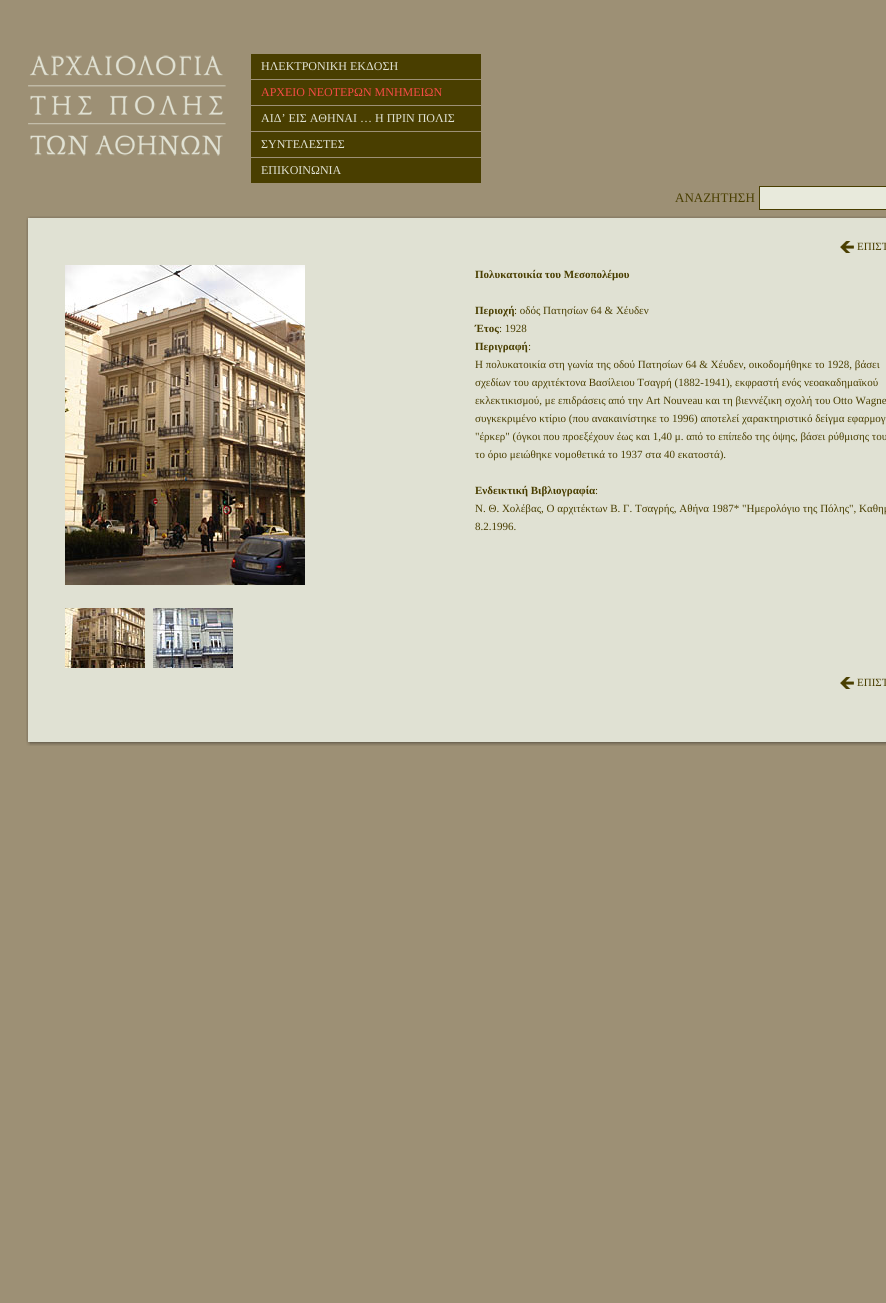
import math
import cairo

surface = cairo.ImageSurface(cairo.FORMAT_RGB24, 886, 1303)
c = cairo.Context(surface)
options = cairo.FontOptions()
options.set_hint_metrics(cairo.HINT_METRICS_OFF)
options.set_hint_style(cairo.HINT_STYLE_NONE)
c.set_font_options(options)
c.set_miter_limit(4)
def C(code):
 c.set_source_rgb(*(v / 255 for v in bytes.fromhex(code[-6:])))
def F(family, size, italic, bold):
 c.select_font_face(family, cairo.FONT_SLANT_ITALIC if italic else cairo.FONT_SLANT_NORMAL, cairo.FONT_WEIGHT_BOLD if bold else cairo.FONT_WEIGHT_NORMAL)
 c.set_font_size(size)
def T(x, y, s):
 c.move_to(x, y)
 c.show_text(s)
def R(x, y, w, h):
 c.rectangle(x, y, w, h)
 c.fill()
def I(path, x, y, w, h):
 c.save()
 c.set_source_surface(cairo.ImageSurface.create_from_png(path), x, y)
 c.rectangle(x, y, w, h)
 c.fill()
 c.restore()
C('9d9075')
c.paint()
I('1.png',28,55,198,101)
C('493e00')
R(251,54,230,25)
F('Liberation Serif',12,0,0)
C('e0e1d3')
T(261,70,'ΗΛΕΚΤΡΟΝΙΚΗ ΕΚΔΟΣΗ')
C('493e00')
R(251,80,230,25)
C('f44b45')
T(261,96,'ΑΡΧΕΙΟ ΝΕΟΤΕΡΩΝ ΜΝΗΜΕΙΩΝ')
C('493e00')
R(251,106,230,25)
C('e0e1d3')
T(261,122,'ΑΙΔ’ ΕΙΣ ΑΘΗΝΑΙ … Η ΠΡΙΝ ΠΟΛΙΣ')
C('493e00')
R(251,132,230,25)
C('e0e1d3')
T(261,148,'ΣΥΝΤΕΛΕΣΤΕΣ')
C('493e00')
R(251,158,230,25)
C('e0e1d3')
T(261,174,'ΕΠΙΚΟΙΝΩΝΙΑ')
F('Liberation Serif',13,0,0)
C('493e00')
T(675,202,'ΑΝΑΖΗΤΗΣΗ')
C('e8eadc')
c.rectangle(759.5,186.5,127,23)
c.fill_preserve()
C('493e00')
c.set_line_width(1)
c.stroke()
I('2.png',26,216,4,4)
I('3.png',30,216,856,4)
I('4.png',26,220,4,521)
C('e0e1d3')
R(30,220,856,521)
I('5.png',840,241,14,12)
F('Liberation Serif',11,0,0)
C('493e00')
T(857,250,'ΕΠΙΣΤ')
I('6.png',65,265,240,320)
I('7.png',65,608,80,60)
I('8.png',153,608,80,60)
F('Liberation Serif',11,0,1)
T(475,278,'Πολυκατοικία του Μεσοπολέμου')
T(475,314,'Περιοχή')
F('Liberation Serif',11,0,0)
T(514,314,': οδός Πατησίων 64 & Χέυδεν')
F('Liberation Serif',11,0,1)
T(475,332,'Έτος')
F('Liberation Serif',11,0,0)
T(499,332,': 1928')
F('Liberation Serif',11,0,1)
T(475,350,'Περιγραφή')
F('Liberation Serif',11,0,0)
T(528,350,':')
T(475,368,'Η πολυκατοικία στη γωνία της οδού Πατησίων 64 & Χέυδεν, οικοδομήθηκε το 1928, βάσει')
T(475,386,'σχεδίων του αρχιτέκτονα Βασίλειου Τσαγρή (1882-1941), εκφραστή ενός νεοακαδημαϊκού')
T(475,404,'εκλεκτικισμού, με επιδράσεις από την Art Nouveau και τη βιεννέζικη σχολή του Otto Wagne')
T(475,422,'συγκεκριμένο κτίριο (που ανακαινίστηκε το 1996) αποτελεί χαρακτηριστικό δείγμα εφαρμογ')
T(475,440,'"έρκερ" (όγκοι που προεξέχουν έως και 1,40 μ. από το επίπεδο της όψης, βάσει ρύθμισης του')
T(475,458,'το όριο μειώθηκε νομοθετικά το 1937 στα 40 εκατοστά).')
F('Liberation Serif',11,0,1)
T(475,494,'Ενδεικτική Βιβλιογραφία')
F('Liberation Serif',11,0,0)
T(595,494,':')
T(475,512,'Ν. Θ. Χολέβας, Ο αρχιτέκτων Β. Γ. Τσαγρής, Αθήνα 1987* "Ημερολόγιο της Πόλης", Καθημ')
T(475,530,'8.2.1996.')
I('5.png',840,677,14,12)
T(857,686,'ΕΠΙΣΤ')
I('9.png',26,741,4,5)
I('10.png',30,741,856,5)
surface.write_to_png('o.png')
